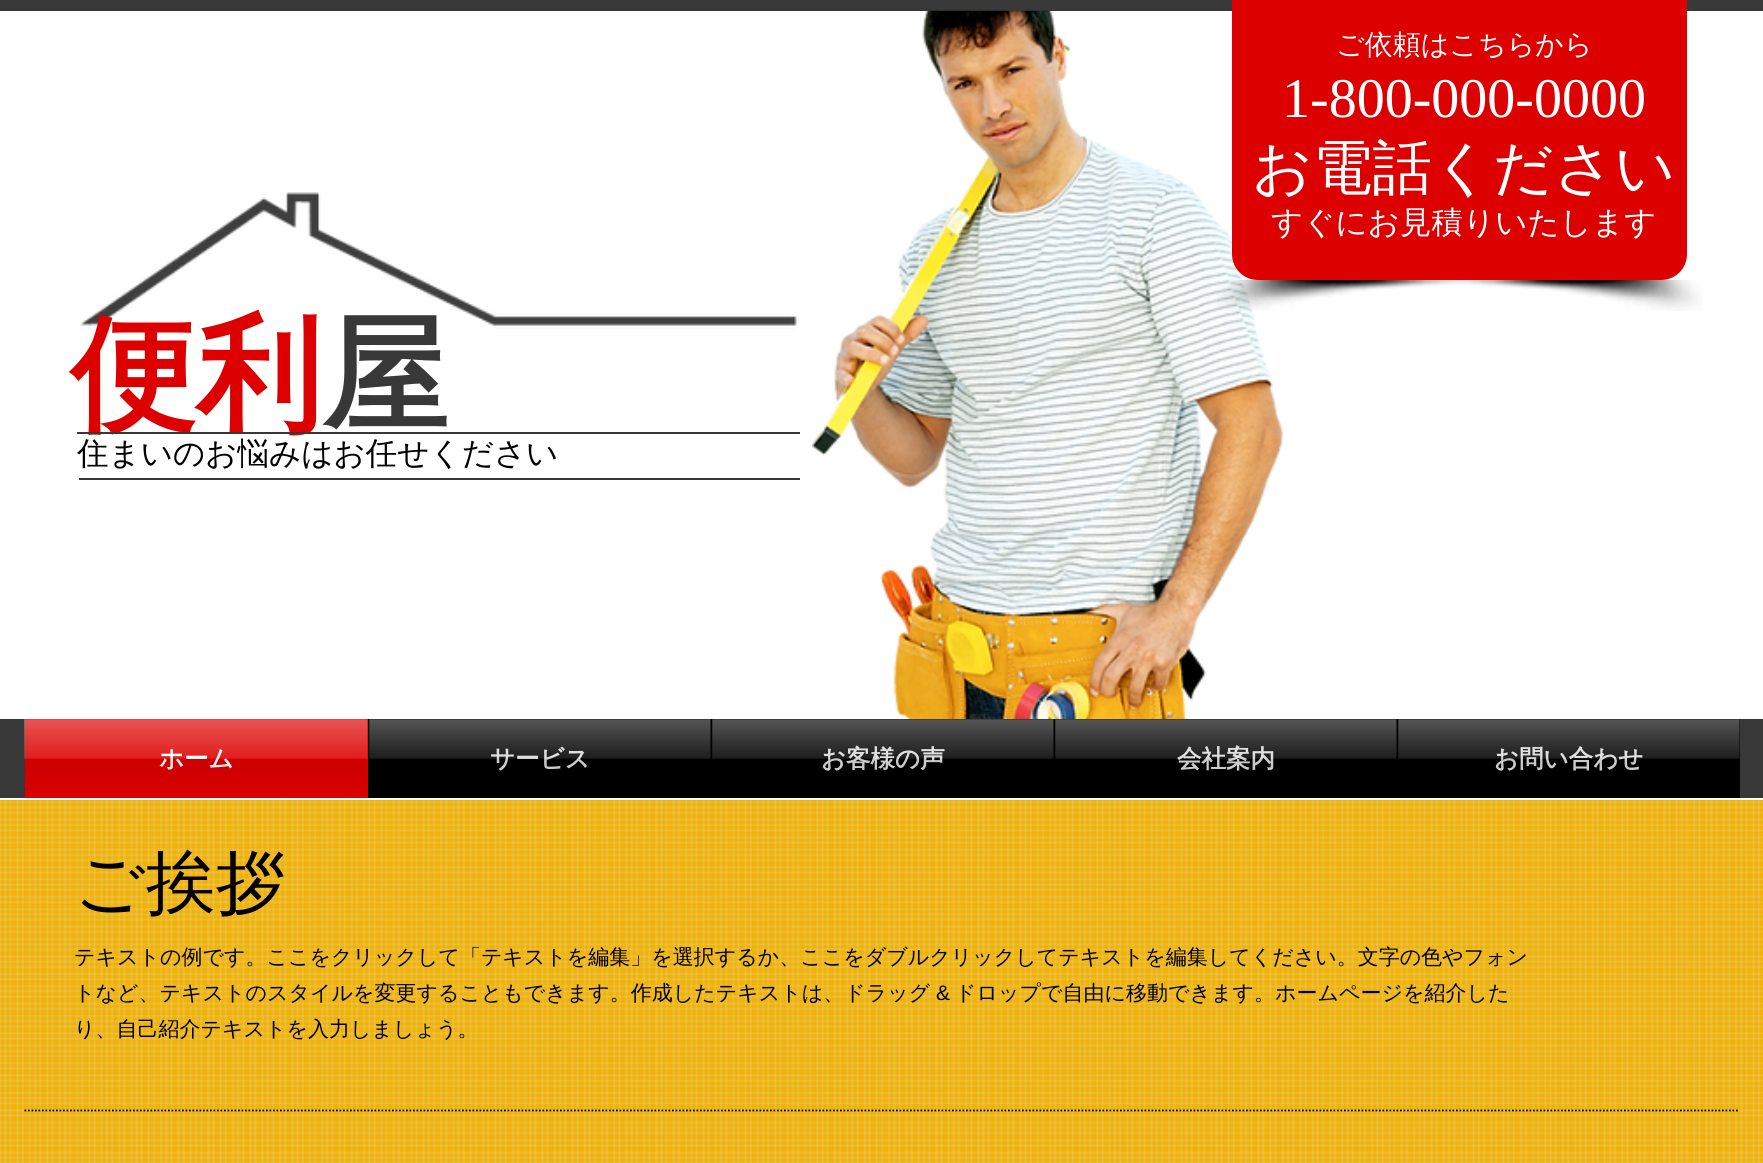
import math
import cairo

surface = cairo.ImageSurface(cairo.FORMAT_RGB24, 1763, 1163)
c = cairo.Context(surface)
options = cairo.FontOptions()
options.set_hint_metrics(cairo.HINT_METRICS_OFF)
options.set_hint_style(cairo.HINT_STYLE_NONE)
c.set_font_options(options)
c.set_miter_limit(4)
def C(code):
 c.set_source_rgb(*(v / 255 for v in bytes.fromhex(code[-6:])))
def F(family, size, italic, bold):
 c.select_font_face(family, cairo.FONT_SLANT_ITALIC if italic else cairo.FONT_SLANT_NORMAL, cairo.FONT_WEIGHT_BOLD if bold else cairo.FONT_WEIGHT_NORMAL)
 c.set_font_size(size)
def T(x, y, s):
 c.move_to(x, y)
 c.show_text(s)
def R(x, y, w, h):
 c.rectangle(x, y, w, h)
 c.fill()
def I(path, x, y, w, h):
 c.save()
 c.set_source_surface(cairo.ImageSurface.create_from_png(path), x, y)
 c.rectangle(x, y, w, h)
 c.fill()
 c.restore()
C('f1b201')
c.paint()
C('ffffff')
R(0,11,1763,789)
C('383838')
R(0,0,1763,11)
I('10.png',812,10,471,709)
C('dd0000')
c.new_path()
c.move_to(1232,0)
c.line_to(1687,0)
c.line_to(1687,254)
c.curve_to(1687,268.5,1675.5,280,1661,280)
c.line_to(1258,280)
c.curve_to(1243.5,280,1232,268.5,1232,254)
c.close_path()
c.fill()
F('WenQuanYi Zen Hei Medium',28,0,0)
C('ffffff')
T(1336,54,'ご依頼はこちらから')
F('Liberation Serif',56,0,0)
T(1282,117,'1-800-000-0000')
F('WenQuanYi Zen Hei Medium',59.5,0,0)
T(1252,188,'お電話ください')
F('WenQuanYi Zen Hei Medium',31.5,0,0)
T(1271,233,'すぐにお見積りいたします')
I('1.png',1217,280,268,31)
I('2.png',1434,280,268,31)
C('383838')
R(0,719,1763,79)
I('3.png',24,719,1,40)
C('dd0000')
R(25,719,343,79)
F('WenQuanYi Zen Hei',24.5,0,1)
C('ffffff')
T(159,767,'ホーム')
I('4.png',24,719,344,76)
C('000000')
R(368,719,1372,79)
C('d9d9d9')
T(490,767,'サービス')
I('5.png',369,719,342,52)
T(821,767,'お客様の声')
I('6.png',712,719,342,52)
T(1177,767,'会社案内')
I('7.png',1055,719,342,52)
T(1494,767,'お問い合わせ')
I('8.png',1398,719,342,52)
I('9.png',80,192,717,137)
F('WenQuanYi Zen Hei',126,0,1)
C('dd0000')
T(70,418,'便利')
C('383838')
T(322,418,'屋')
R(77,432,723,2)
F('WenQuanYi Zen Hei Medium',31.5,0,0)
C('000000')
T(77,464,'住まいのお悩みはお任せください')
C('383838')
R(79,478,721,2)
I('11.png',0,800,1763,363)
F('WenQuanYi Zen Hei Medium',70,0,0)
C('000000')
T(74,907,'ご挨拶')
F('WenQuanYi Zen Hei Medium',21,0,0)
T(74,964,'テキストの例です。ここをクリックして「テキストを編集」を選択するか、ここをダブルクリックしてテキストを編集してください。文字の色やフォン')
T(74,1000,'トなど、テキストのスタイルを変更することもできます。作成したテキストは、ドラッグ')
F('Liberation Sans',21,0,0)
T(936,1000,'&')
F('WenQuanYi Zen Hei Medium',21,0,0)
T(955,1000,'ドロップで自由に移動できます。ホームページを紹介した')
T(74,1036,'り、自己紹介テキストを入力しましょう。')
c.new_path()
c.move_to(24.5,1110.5)
c.line_to(1739.5,1110.5)
c.set_line_width(1.8)
c.set_dash([1.75,1.75])
c.stroke()
surface.write_to_png('o.png')
